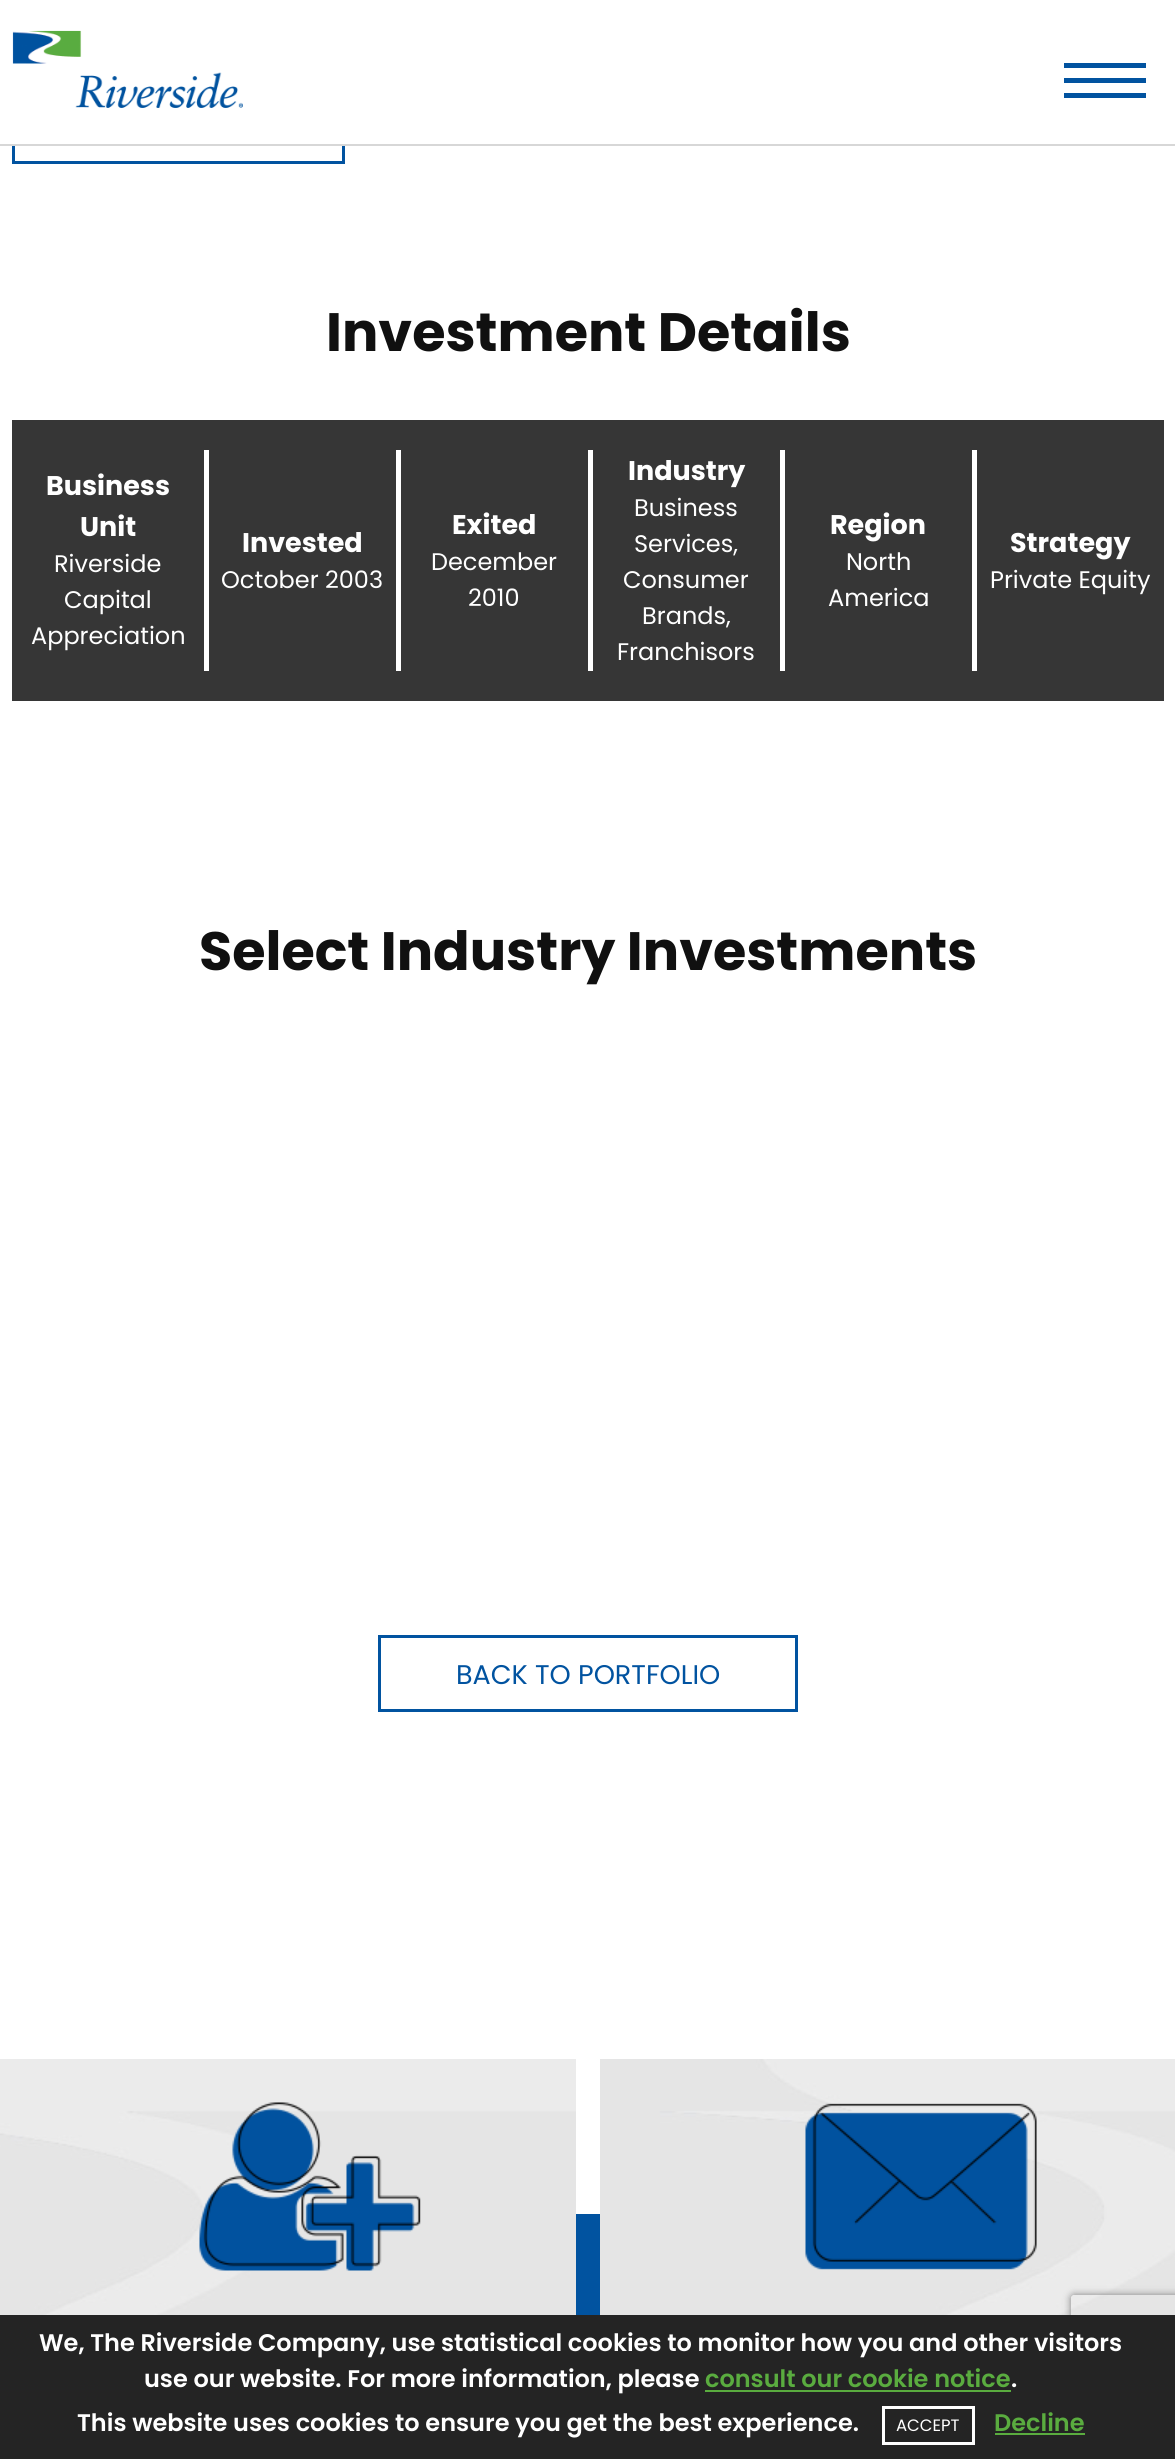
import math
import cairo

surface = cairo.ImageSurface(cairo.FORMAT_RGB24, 1175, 2459)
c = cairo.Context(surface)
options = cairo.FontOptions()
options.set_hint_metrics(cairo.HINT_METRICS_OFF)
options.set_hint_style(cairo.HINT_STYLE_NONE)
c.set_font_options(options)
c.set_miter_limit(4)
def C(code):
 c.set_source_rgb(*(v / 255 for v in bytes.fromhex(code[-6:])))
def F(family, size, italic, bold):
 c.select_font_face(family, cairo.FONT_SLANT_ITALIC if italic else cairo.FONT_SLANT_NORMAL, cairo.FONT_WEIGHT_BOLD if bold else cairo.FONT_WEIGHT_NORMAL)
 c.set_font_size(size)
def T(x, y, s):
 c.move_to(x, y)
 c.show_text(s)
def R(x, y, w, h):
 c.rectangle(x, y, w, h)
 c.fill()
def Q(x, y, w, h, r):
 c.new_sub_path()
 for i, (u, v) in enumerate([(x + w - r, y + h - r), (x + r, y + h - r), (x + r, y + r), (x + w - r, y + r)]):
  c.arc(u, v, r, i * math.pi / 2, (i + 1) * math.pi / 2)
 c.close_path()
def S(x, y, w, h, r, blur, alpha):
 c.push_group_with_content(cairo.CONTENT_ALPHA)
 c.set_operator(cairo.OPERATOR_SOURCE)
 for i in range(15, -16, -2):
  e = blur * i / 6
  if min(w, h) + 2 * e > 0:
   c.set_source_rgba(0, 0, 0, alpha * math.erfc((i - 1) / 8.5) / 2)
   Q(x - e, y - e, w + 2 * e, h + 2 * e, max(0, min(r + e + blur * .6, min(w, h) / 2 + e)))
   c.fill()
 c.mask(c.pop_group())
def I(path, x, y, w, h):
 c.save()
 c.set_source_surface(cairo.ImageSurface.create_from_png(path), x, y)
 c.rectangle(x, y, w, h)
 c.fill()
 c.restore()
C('ffffff')
c.paint()
c.rectangle(13.5,88.5,330,74)
C('0153a0')
c.set_line_width(3)
c.stroke()
C('ffffff')
R(12,87,333,57)
C('d7d7d7')
R(0,144,1175,2)
I('1.png',12,30,231,78)
C('0153a0')
R(1064,63,82,5)
R(1064,78,82,5)
R(1064,93,82,5)
F('Poppins',54,0,1)
C('101010')
T(326,351,'Investment Details')
C('363636')
R(12,420,1152,281)
F('Poppins',27,0,1)
C('ffffff')
T(46,495,'Business')
T(80,536,'Unit')
F('Poppins',24,0,0)
T(54,572,'Riverside')
T(64,608,'Capital')
T(31,644,'Appreciation')
R(204,450,5,221)
F('Poppins',27,0,1)
T(242,552,'Invested')
F('Poppins',24,0,0)
T(221,588,'October 2003')
R(396,450,5,221)
F('Poppins',27,0,1)
T(452,534,'Exited')
F('Poppins',24,0,0)
T(431,570,'December')
T(468,606,'2010')
R(588,450,5,221)
F('Poppins',27,0,1)
T(628,480,'Industry')
F('Poppins',24,0,0)
T(634,516,'Business')
T(634,552,'Services,')
T(623,588,'Consumer')
T(642,624,'Brands,')
T(617,660,'Franchisors')
R(780,450,5,221)
F('Poppins',27,0,1)
T(830,534,'Region')
F('Poppins',24,0,0)
T(846,570,'North')
T(828,606,'America')
R(972,450,5,221)
F('Poppins',27,0,1)
T(1010,552,'Strategy')
F('Poppins',24,0,0)
T(990,588,'Private Equity')
F('Poppins',54,0,1)
C('101010')
T(199,970,'Select Industry Investments')
c.rectangle(379.5,1636.5,417,74)
C('0153a0')
c.stroke()
F('Poppins',27,0,0)
T(456,1684,'BACK TO PORTFOLIO')
R(576,2214,24,101)
I('2.png',0,2059,576,256)
I('3.png',199,2102,222,169)
I('4.png',600,2059,575,256)
I('5.png',805,2103,232,167)
c.save()
c.set_fill_rule(cairo.FILL_RULE_EVEN_ODD)
c.new_path()
c.move_to(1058,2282)
c.line_to(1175,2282)
c.line_to(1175,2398)
c.line_to(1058,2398)
c.close_path()
c.move_to(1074,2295)
c.line_to(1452,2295)
c.curve_to(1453.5,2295,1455,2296.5,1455,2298)
c.line_to(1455,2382)
c.curve_to(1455,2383.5,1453.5,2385,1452,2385)
c.line_to(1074,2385)
c.curve_to(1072.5,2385,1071,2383.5,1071,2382)
c.line_to(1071,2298)
c.curve_to(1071,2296.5,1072.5,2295,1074,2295)
c.close_path()
c.clip()
C('808080')
S(1071,2295,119,90,3,4,1)
c.restore()
C('242424')
R(0,2315,1175,144)
F('Poppins SemiBold',24,0,0)
C('ffffff')
T(39,2351,'We, The Riverside Company, use statistical cookies to monitor how you and other visitors')
T(144,2387,'use our website. For more information, please')
C('5aac3f')
T(705,2387,'consult our cookie notice')
R(705,2390,306,2)
C('ffffff')
T(1011,2387,'.')
T(77,2431,'This website uses cookies to ensure you get the best experience.')
c.rectangle(883.5,2407.5,90,36)
c.stroke()
F('Poppins',16.5,0,0)
T(896,2431,'ACCEPT')
F('Poppins SemiBold',24,0,0)
C('5aac3f')
T(994,2431,'Decline')
R(995,2433,90,2)
surface.write_to_png('o.png')
